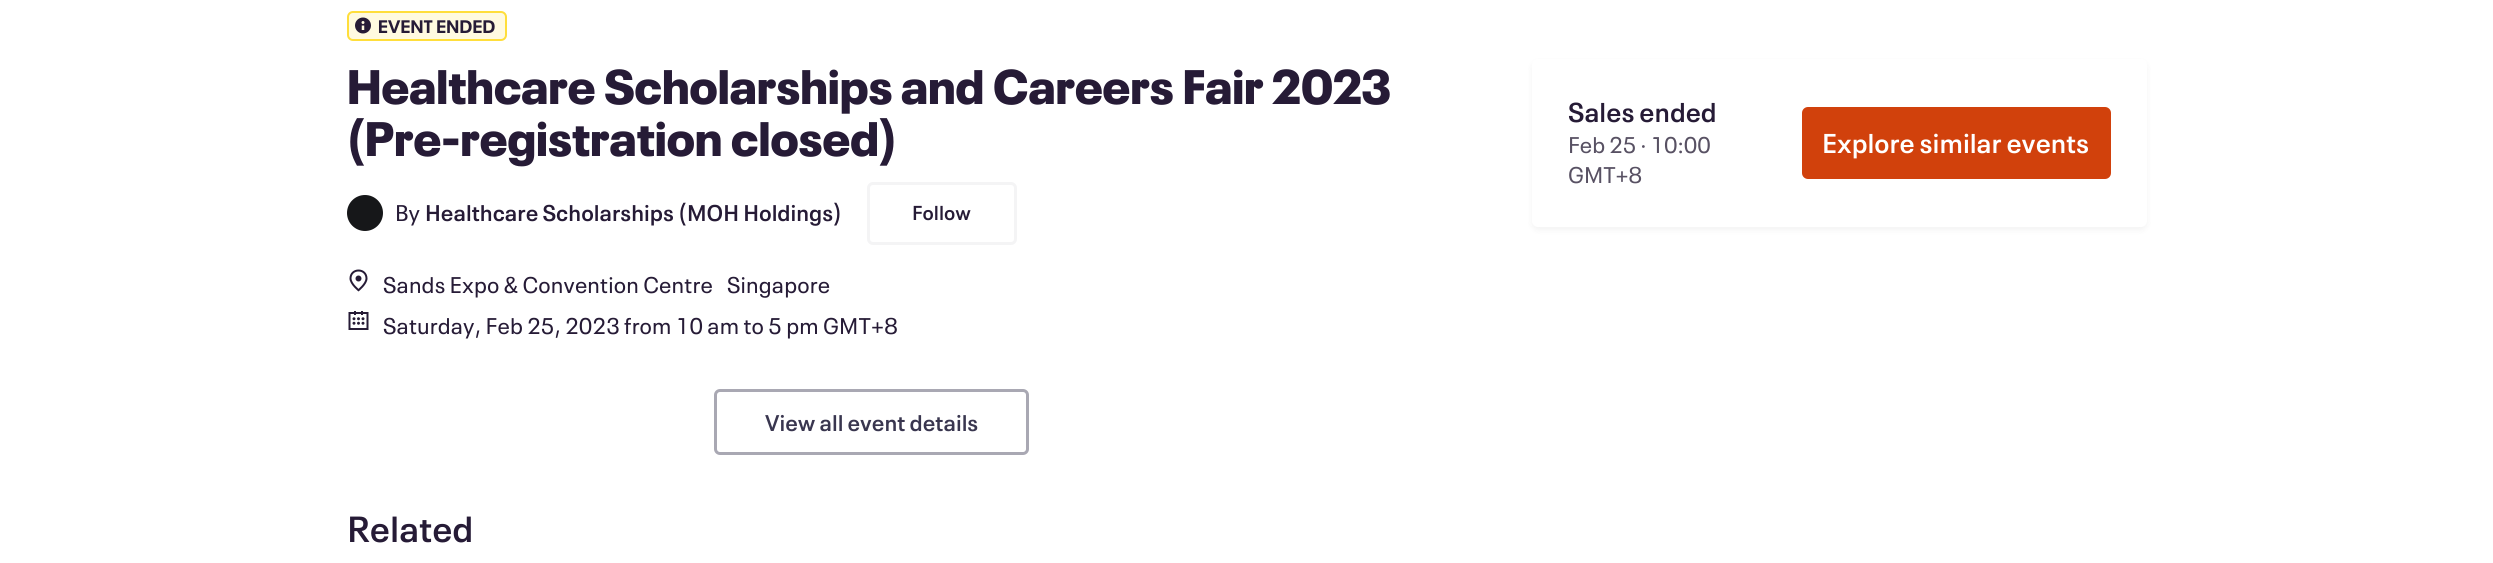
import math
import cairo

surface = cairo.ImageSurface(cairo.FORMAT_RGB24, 2493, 563)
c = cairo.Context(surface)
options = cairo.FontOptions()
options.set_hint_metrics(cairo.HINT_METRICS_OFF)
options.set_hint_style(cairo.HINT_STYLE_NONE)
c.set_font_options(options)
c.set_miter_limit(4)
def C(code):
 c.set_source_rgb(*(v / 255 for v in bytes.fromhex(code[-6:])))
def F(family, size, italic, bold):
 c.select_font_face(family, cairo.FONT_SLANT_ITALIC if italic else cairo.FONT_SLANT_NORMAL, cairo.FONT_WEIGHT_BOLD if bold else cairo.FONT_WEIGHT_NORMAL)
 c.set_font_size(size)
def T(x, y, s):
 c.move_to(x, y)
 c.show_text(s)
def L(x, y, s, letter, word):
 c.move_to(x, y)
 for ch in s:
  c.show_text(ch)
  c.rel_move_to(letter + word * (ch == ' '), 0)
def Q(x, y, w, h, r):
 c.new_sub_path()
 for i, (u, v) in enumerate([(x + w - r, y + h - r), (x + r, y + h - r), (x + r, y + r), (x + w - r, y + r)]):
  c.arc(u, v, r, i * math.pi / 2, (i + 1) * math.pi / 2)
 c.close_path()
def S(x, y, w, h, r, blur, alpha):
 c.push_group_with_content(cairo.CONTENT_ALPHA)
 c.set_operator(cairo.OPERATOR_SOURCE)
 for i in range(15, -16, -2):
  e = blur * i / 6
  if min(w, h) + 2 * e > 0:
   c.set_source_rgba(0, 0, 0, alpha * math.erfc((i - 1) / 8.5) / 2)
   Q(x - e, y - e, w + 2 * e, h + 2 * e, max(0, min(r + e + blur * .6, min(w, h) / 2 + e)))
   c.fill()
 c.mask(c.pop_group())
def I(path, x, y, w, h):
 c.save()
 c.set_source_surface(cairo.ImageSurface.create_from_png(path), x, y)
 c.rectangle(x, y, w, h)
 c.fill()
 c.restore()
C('ffffff')
c.paint()
C('fffae0')
Q(348,12,158,28,5)
c.fill_preserve()
C('ffde3b')
c.stroke()
I('1.png',355,17,16,17)
F('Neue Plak',18,0,1)
C('261b36')
L(378,33,'EVENT ENDED',.25,0)
F('Neue Plak Black',48,0,0)
T(347,104,'Healthcare Scholarships and Careers Fair 2023')
T(347,156,'(Pre-registration closed)')
C('161719')
c.new_path()
c.arc(365,213,18,0,2 * math.pi)
c.fill()
F('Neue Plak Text',22.5,0,0)
C('261b36')
T(395,221,'By')
F('Neue Plak Text SemiBold',22.5,0,0)
T(425,221,'Healthcare Scholarships (MOH Holdings)')
Q(868.5,183.5,147,60,4.5)
C('f4f4f5')
c.set_line_width(3)
c.stroke()
F('Neue Plak Text SemiBold',20,0,0)
C('261b36')
T(912,220,'Follow')
I('2.png',349,269,19,23)
F('Neue Plak Text',22.5,0,0)
L(383,293,'Sands Expo & Convention Centre',.15,0)
L(727,293,'Singapore',.15,0)
I('3.png',348,311,21,19)
L(383,334,'Saturday, Feb 25, 2023 from 10 am to 5 pm GMT+8',.15,0)
Q(715.5,390.5,312,63,4.5)
C('a9a8b3')
c.stroke()
F('Neue Plak Text SemiBold',22.5,0,0)
C('39364f')
T(765,431,'View all event details')
F('Neue Plak Text SemiBold',36,0,0)
C('261b36')
T(347,542,'Related')
C('000000')
S(1532,62,615,168,6,3,.05)
C('ffffff')
Q(1532,59,615,168,6)
c.fill()
F('Neue Plak Text SemiBold',27,0,0)
C('261b36')
T(1568,122,'Sales ended')
F('Neue Plak Text',22.5,0,0)
C('585163')
T(1568,153,'Feb 25 · 10:00')
T(1568,183,'GMT+8')
C('d1410c')
Q(1802,107,309,72,6)
c.fill()
F('Neue Plak Text SemiBold',27,0,0)
C('ffffff')
T(1822,153,'Explore similar events')
surface.write_to_png('o.png')
